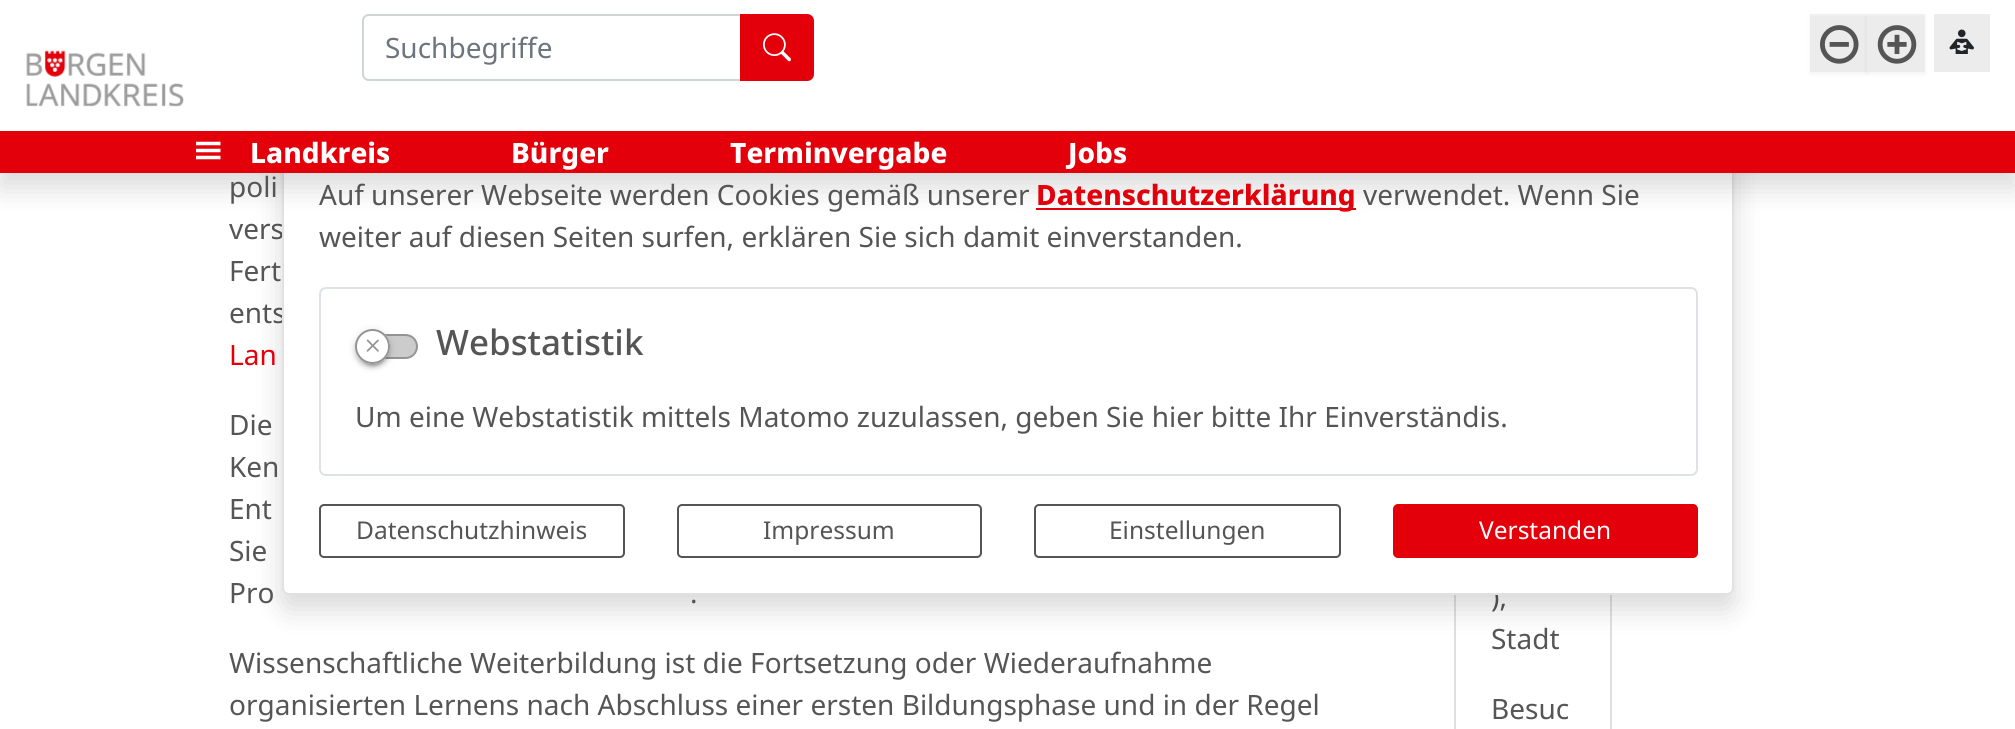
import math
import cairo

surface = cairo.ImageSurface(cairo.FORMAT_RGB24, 2015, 729)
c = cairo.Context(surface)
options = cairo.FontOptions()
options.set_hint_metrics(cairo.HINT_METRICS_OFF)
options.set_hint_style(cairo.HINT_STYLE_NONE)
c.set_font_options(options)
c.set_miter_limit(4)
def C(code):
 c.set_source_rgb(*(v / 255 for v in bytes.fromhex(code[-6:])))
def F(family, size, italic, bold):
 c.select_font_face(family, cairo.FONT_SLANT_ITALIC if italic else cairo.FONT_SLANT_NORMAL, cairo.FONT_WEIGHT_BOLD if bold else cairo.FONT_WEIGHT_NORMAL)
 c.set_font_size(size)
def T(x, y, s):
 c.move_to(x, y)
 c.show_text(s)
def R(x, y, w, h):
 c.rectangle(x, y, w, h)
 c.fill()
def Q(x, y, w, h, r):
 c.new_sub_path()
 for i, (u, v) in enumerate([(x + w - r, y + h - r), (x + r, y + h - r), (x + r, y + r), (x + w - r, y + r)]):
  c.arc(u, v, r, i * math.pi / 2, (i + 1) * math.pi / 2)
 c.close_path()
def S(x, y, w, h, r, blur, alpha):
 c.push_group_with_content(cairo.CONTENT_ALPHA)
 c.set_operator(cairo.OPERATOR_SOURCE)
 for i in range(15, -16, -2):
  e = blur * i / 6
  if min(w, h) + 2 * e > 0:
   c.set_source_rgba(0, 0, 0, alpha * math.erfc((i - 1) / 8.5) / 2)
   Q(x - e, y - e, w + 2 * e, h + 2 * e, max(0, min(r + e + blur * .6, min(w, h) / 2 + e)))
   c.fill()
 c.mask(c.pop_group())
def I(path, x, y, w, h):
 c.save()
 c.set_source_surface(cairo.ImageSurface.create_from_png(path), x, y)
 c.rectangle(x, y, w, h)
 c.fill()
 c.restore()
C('ffffff')
c.paint()
c.rectangle(1455,-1,156,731)
C('dfdfdf')
c.stroke()
F('Noto Sans',28,0,0)
C('555555')
T(229,239,'vers')
T(229,323,'ents')
T(1491,607,'),')
C('000000')
S(282,152,1452,457,7,14,.15)
C('ffffff')
Q(282,138,1452,457,7)
c.fill()
Q(283,139,1450,455,6)
c.set_source_rgba(0,0,0,0.12)
c.stroke()
C('e3000b')
R(1036,208,320,2)
C('000000')
S(0,14,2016,173,0,14,.15)
C('ffffff')
R(0,0,2015,131)
I('1.png',26,50,158,57)
c.new_path()
c.move_to(369,15)
c.line_to(741,15)
c.line_to(741,80)
c.line_to(369,80)
c.curve_to(365.5,80,363,77.5,363,74)
c.line_to(363,21)
c.curve_to(363,17.5,365.5,15,369,15)
c.close_path()
C('ced4da')
c.stroke()
C('6c757d')
T(385,58,'Suchbegriffe')
C('e3000b')
c.new_path()
c.move_to(741,15)
c.line_to(807,15)
c.curve_to(810.5,15,813,17.5,813,21)
c.line_to(813,74)
c.curve_to(813,77.5,810.5,80,807,80)
c.line_to(741,80)
c.close_path()
c.fill_preserve()
c.stroke()
I('2.png',763,33,28,29)
C('000000')
S(1810,16,57,58,0,2,.05)
C('ececed')
R(1810,16,57,56)
C('f0f0f1')
R(1810,14,57,2)
I('3.png',1820,25,39,39)
C('000000')
S(1867,16,58,58,0,2,.05)
C('ececed')
R(1867,16,58,56)
C('f0f0f1')
R(1867,14,58,2)
I('4.png',1877,25,40,39)
C('ececed')
R(1934,14,56,58)
I('5.png',1949,29,25,25)
C('e3000b')
R(0,131,2015,42)
I('6.png',196,141,25,19)
F('Noto Sans ExtraBold',28,0,0)
C('ffffff')
T(250,163,'Landkreis')
T(511,163,'Bürger')
T(730,163,'Terminvergabe')
T(1068,163,'Jobs')
F('Noto Sans',28,0,0)
C('555555')
T(229,197,'poli')
T(229,281,'Fert')
C('e3000b')
T(229,365,'Lan')
C('555555')
T(229,435,'Die')
T(229,477,'Ken')
T(229,519,'Ent')
T(229,561,'Sie')
T(229,603,'Pro')
T(690,603,'.')
T(229,673,'Wissenschaftliche Weiterbildung ist die Fortsetzung oder Wiederaufnahme')
T(229,715,'organisierten Lernens nach Abschluss einer ersten Bildungsphase und in der Regel')
T(1491,649,'Stadt')
T(1491,719,'Besuc')
T(319,205,'Auf unserer Webseite werden Cookies gemäß unserer')
F('Noto Sans ExtraBold',28,0,0)
C('e3000b')
T(1036,205,'Datenschutzerklärung')
F('Noto Sans',28,0,0)
C('555555')
T(1363,205,'verwendet. Wenn Sie')
T(319,247,'weiter auf diesen Seiten surfen, erklären Sie sich damit einverstanden.')
Q(320,288,1377,187,6)
C('dee2e6')
c.stroke()
C('cccccc')
Q(356,335,61,23,11.5)
c.fill_preserve()
C('949494')
c.stroke()
C('000000')
S(355,331,35,35,17.5,4.5,.12)
S(355,333,35,35,17.5,2,.14)
S(359,338,28,28,14,1,.2)
C('ffffff')
c.arc(372.5,346.5,17.5,0,2 * math.pi)
c.fill()
I('7.png',366,339,13,13)
c.arc(372.5,346.5,16.5,0,2 * math.pi)
C('949494')
c.stroke()
F('Noto Sans Medium',35,0,0)
C('555555')
T(436,355,'Webstatistik')
F('Noto Sans',28,0,0)
T(355,427,'Um eine Webstatistik mittels Matomo zuzulassen, geben Sie hier bitte Ihr Einverständis.')
Q(320,505,304,52,4)
c.stroke()
F('Noto Sans',24.5,0,0)
T(356,539,'Datenschutzhinweis')
Q(678,505,303,52,4)
c.stroke()
T(763,539,'Impressum')
Q(1035,505,305,52,4)
c.stroke()
T(1109,539,'Einstellungen')
C('e3000b')
Q(1394,505,303,52,4)
c.fill_preserve()
c.stroke()
C('ffffff')
T(1479,539,'Verstanden')
surface.write_to_png('o.png')
